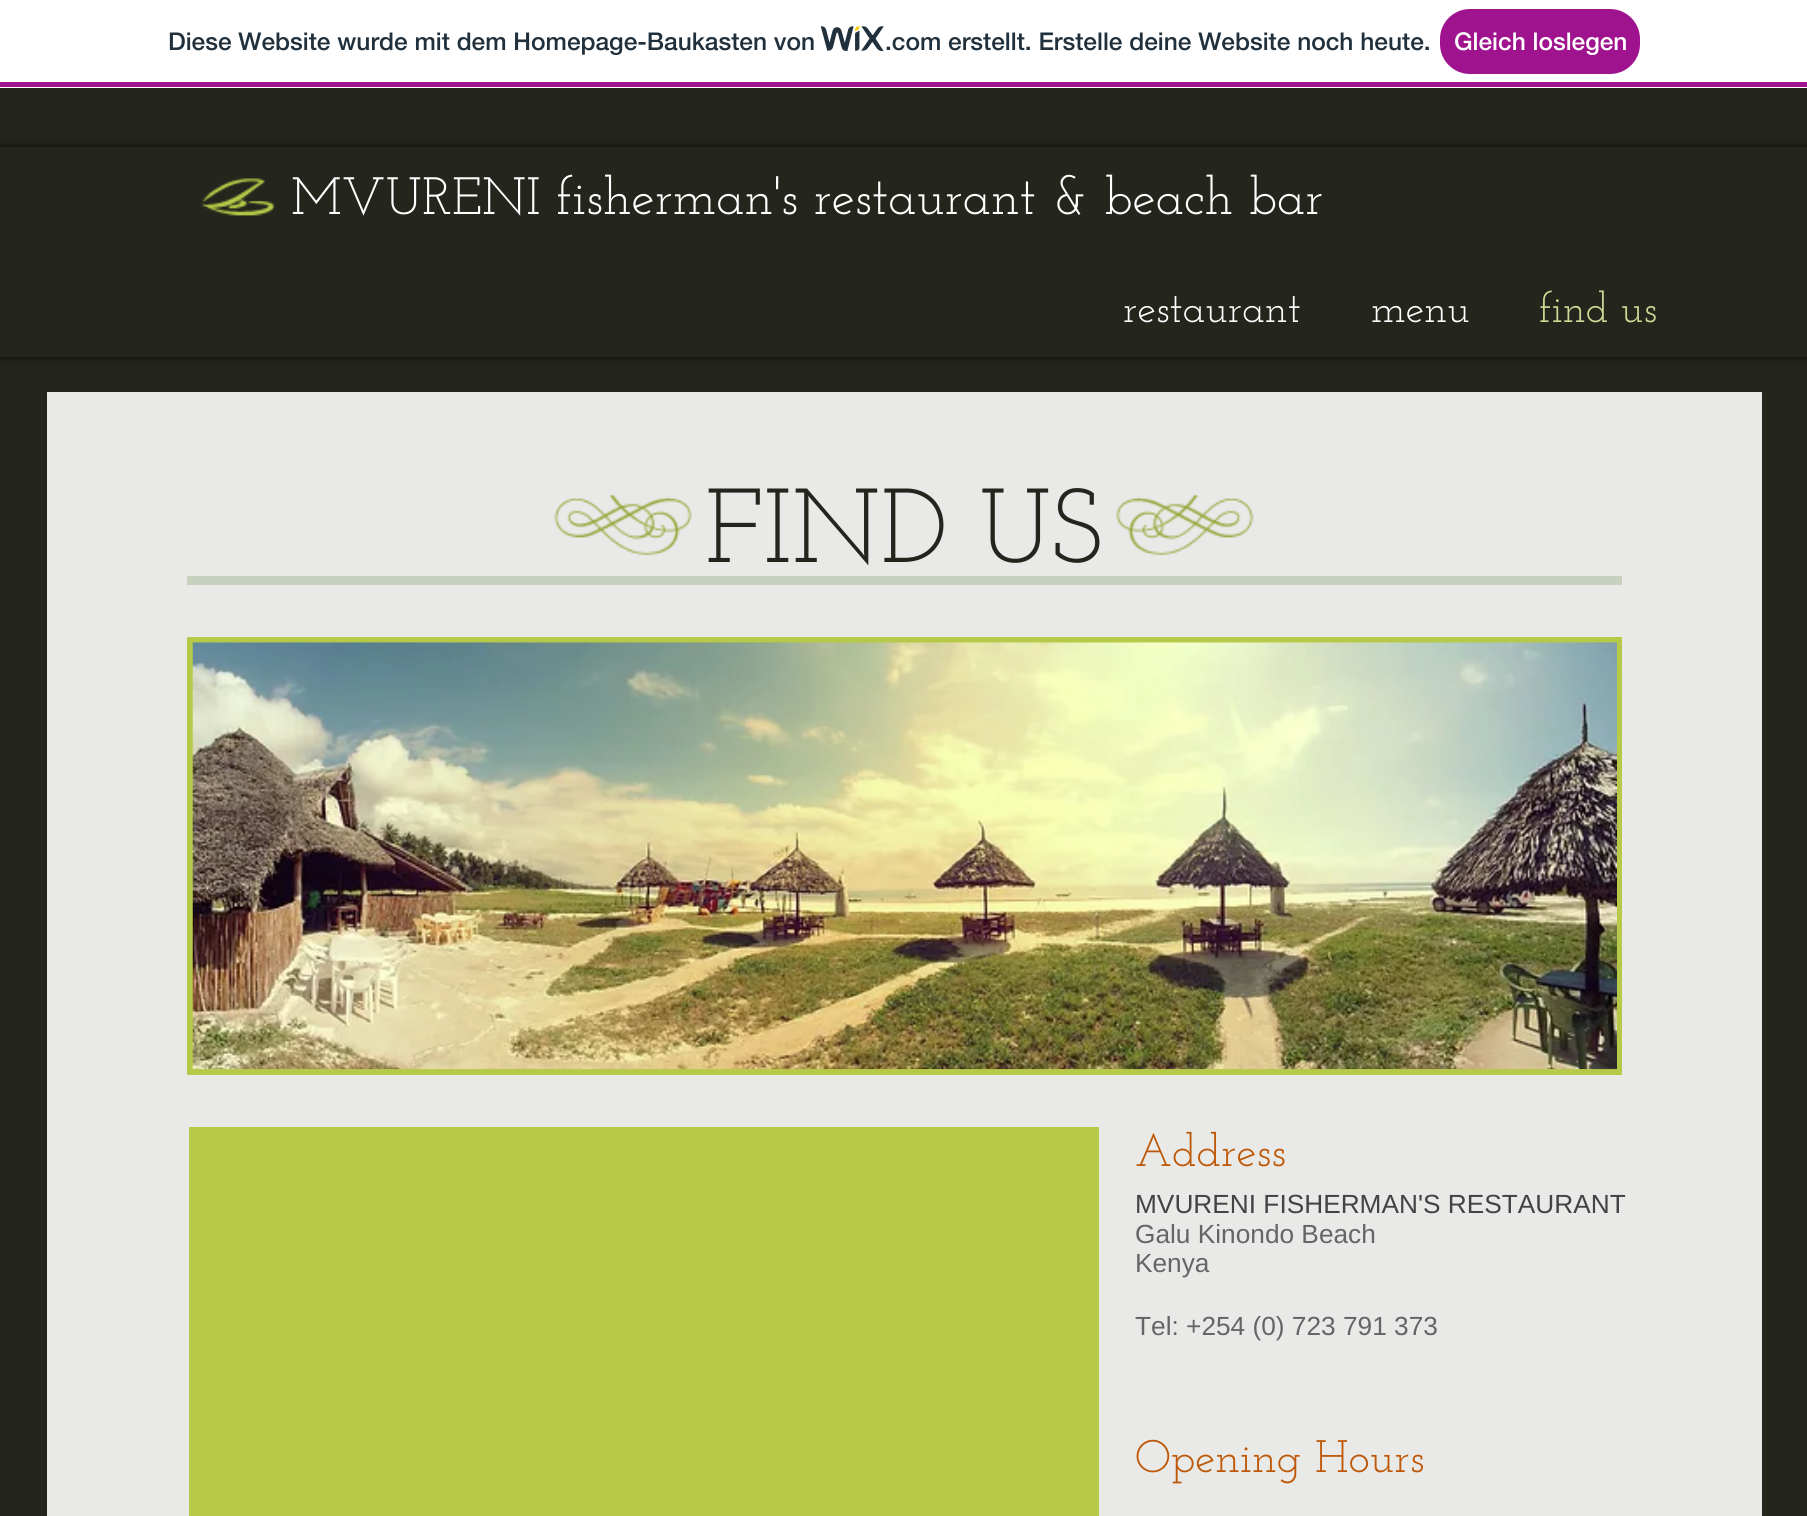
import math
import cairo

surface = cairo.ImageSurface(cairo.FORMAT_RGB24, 1807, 1516)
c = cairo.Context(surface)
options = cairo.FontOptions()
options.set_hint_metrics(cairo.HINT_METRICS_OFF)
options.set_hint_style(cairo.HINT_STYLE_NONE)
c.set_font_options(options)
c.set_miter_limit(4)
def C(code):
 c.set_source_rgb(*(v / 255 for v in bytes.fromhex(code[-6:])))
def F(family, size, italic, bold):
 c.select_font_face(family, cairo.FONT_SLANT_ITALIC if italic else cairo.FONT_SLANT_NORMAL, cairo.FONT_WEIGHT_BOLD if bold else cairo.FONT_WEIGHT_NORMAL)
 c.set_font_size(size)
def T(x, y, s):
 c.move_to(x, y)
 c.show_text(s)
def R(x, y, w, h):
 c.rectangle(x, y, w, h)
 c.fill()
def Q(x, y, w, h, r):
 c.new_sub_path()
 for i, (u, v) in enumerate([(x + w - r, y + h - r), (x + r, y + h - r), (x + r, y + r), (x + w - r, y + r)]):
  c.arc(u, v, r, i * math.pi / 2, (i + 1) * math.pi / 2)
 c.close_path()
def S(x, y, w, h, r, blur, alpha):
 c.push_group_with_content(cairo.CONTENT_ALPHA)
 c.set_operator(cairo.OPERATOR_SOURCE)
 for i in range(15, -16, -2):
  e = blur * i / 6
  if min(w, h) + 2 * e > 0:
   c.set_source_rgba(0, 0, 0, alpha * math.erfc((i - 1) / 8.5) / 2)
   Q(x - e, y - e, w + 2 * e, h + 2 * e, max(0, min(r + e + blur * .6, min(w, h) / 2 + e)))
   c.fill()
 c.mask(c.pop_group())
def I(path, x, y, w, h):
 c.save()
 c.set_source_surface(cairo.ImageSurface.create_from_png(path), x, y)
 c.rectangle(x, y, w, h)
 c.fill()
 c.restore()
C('ffffff')
c.paint()
C('a0138e')
R(0,82,1807,5)
F('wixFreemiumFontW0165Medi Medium',24.5,0,0)
C('20303c')
T(168,50,'Diese Website wurde mit dem Homepage-Baukasten von')
I('1.png',821,26,63,26)
T(885,50,'.com erstellt. Erstelle deine Website noch heute.')
C('a0138e')
Q(1441,10,198,63,29)
c.fill_preserve()
c.stroke()
C('ffffff')
T(1454,50,'Gleich loslegen')
C('24251d')
R(0,88,1807,1428)
c.save()
c.set_fill_rule(cairo.FILL_RULE_EVEN_ODD)
c.new_path()
c.move_to(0,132)
c.line_to(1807,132)
c.line_to(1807,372)
c.line_to(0,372)
c.close_path()
c.move_to(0,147)
c.line_to(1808,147)
c.line_to(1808,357)
c.line_to(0,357)
c.close_path()
c.clip()
C('000000')
S(0,147,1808,210,0,4.5,.7)
c.restore()
I('2.png',201,178,74,38)
F('Josefin Slab',52.5,0,0)
C('ffffff')
T(291,214,'MVURENI fisherman\'s restaurant & beach bar')
F('Josefin Slab',42,0,0)
T(1123,322,'restaurant')
T(1371,322,'menu')
C('d0db95')
T(1539,322,'find us')
C('e9e9e8')
R(47,392,1715,1124)
I('3.png',554,494,138,62)
F('Josefin Slab',105,0,0)
C('24251d')
T(705,562,'FIND US')
I('4.png',1116,494,138,62)
C('c8d1be')
R(187,576,1435,9)
C('b6c948')
R(187,637,1435,438)
I('5.png',192,642,1425,428)
R(189,1127,910,389)
F('Josefin Slab',45.5,0,0)
C('be5807')
T(1135,1166,'Address')
F('Liberation Sans',26.25,0,0)
C('444343')
T(1135,1213,'MVURENI FISHERMAN\'S RESTAURANT')
C('656565')
T(1135,1243,'Galu Kinondo Beach')
T(1135,1272,'Kenya')
T(1135,1335,'Tel: +254 (0) 723 791 373')
F('Josefin Slab',45.5,0,0)
C('be5807')
T(1135,1472,'Opening Hours')
surface.write_to_png('o.png')
